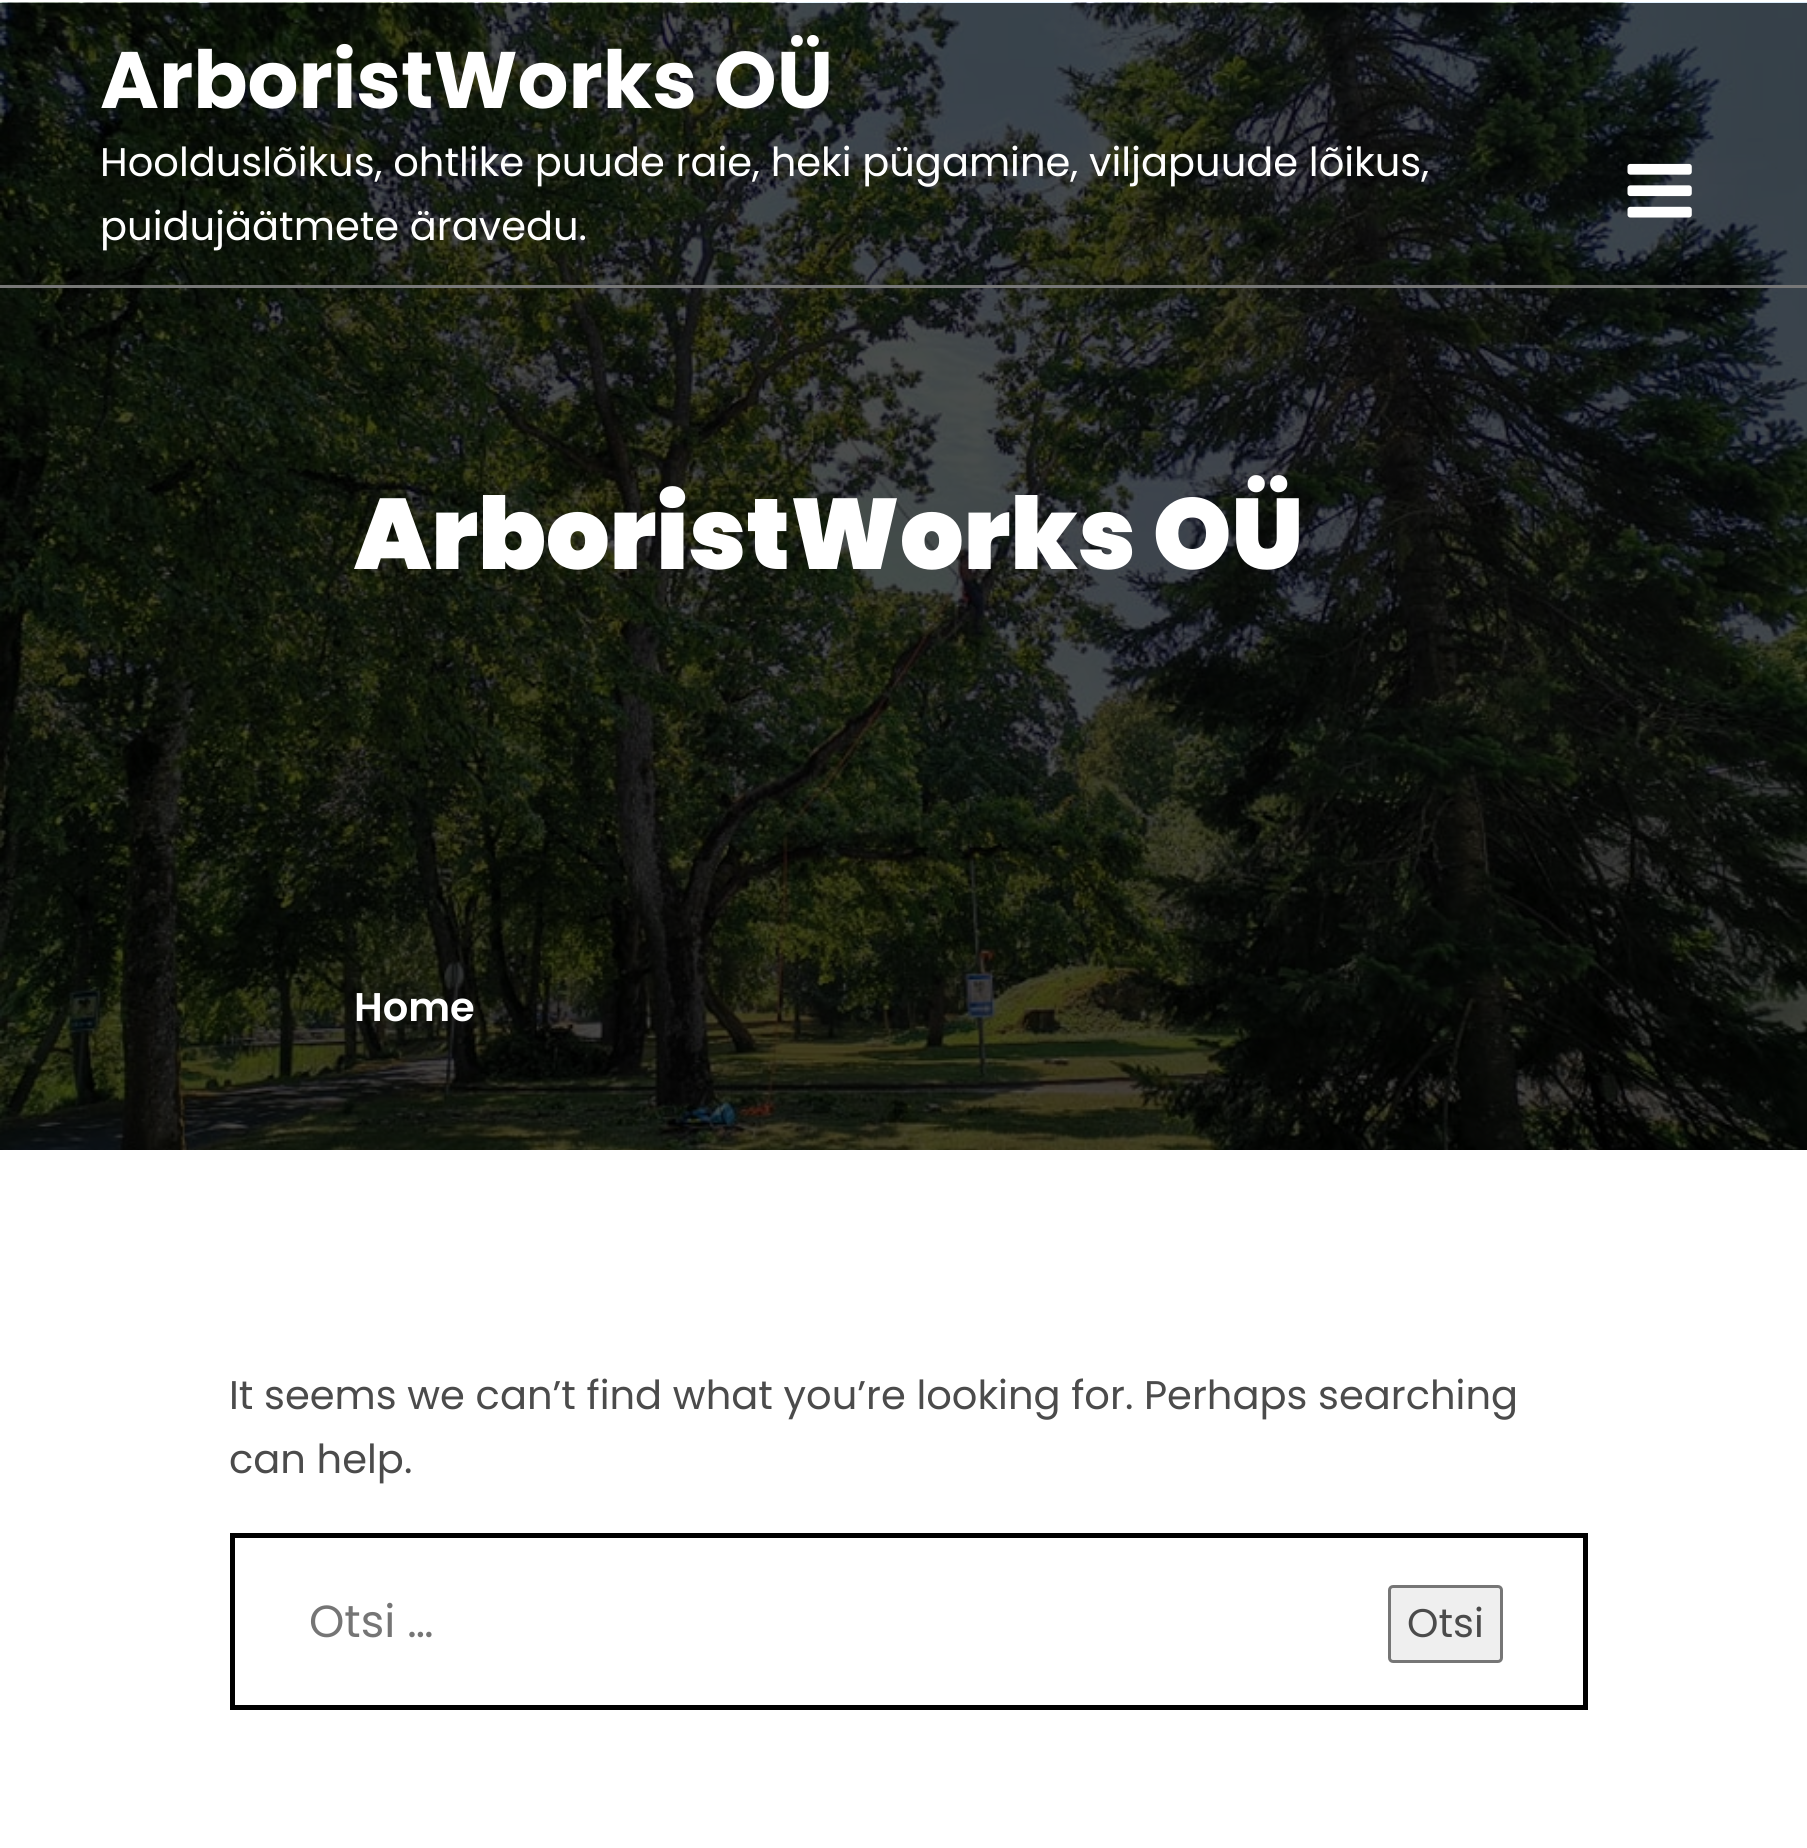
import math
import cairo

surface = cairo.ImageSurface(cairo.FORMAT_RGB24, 1807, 1848)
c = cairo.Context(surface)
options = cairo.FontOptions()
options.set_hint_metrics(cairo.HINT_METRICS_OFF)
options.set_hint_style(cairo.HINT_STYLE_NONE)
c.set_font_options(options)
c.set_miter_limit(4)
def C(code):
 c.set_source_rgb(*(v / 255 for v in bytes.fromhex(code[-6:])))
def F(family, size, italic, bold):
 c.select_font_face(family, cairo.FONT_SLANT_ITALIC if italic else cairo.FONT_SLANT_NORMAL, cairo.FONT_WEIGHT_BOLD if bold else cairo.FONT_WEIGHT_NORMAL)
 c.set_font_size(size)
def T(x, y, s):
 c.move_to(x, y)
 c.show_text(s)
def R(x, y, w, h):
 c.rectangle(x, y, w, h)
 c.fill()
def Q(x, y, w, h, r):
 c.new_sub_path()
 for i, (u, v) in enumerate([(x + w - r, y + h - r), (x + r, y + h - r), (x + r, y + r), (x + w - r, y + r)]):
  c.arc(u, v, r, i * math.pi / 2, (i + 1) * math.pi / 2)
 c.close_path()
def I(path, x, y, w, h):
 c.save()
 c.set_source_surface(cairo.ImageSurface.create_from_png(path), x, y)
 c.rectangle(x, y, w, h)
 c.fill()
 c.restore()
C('ffffff')
c.paint()
I('2.png',0,2,1807,1148)
C('777777')
R(0,285,1807,3)
F('Poppins',80,0,1)
C('ffffff')
T(100,108,'ArboristWorks OÜ')
F('Poppins',40,0,0)
T(100,176,'Hoolduslõikus, ohtlike puude raie, heki pügamine, viljapuude lõikus,')
T(100,240,'puidujäätmete äravedu.')
I('1.png',1627,163,65,55)
F('Poppins Black',100,0,0)
T(354,569,'ArboristWorks OÜ')
F('Poppins SemiBold',40,0,0)
T(354,1021,'Home')
F('Poppins',40,0,0)
C('4b4b4b')
T(229,1409,'It seems we can’t find what you’re looking for. Perhaps searching')
T(229,1473,'can help.')
c.rectangle(232.5,1535.5,1353,172)
C('000000')
c.set_line_width(5)
c.stroke()
F('Poppins',45,0,0)
C('757575')
T(309,1637,'Otsi …')
C('efefef')
Q(1389.5,1586.5,112,75,3.5)
c.fill_preserve()
C('767676')
c.set_line_width(3)
c.stroke()
F('Poppins',40,0,0)
C('4b4b4b')
T(1407,1637,'Otsi')
surface.write_to_png('o.png')
